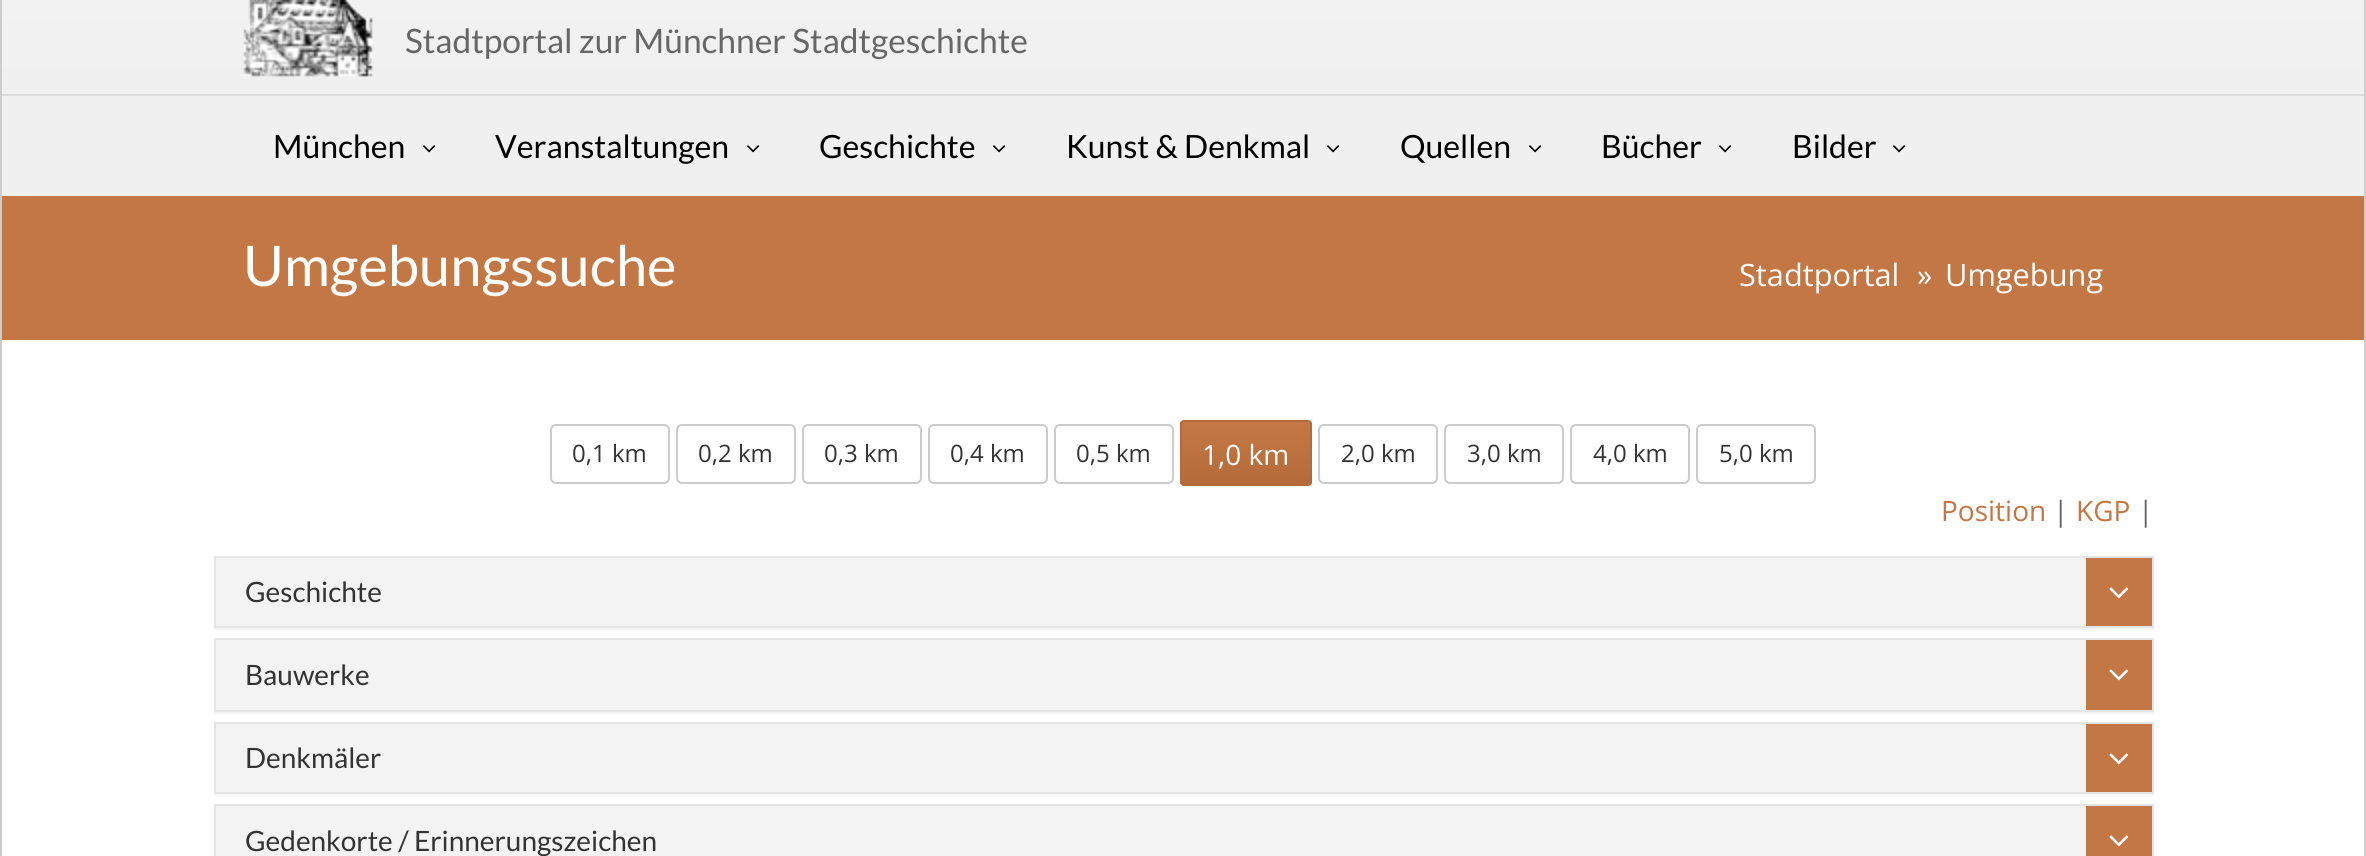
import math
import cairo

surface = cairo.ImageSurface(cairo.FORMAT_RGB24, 2366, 856)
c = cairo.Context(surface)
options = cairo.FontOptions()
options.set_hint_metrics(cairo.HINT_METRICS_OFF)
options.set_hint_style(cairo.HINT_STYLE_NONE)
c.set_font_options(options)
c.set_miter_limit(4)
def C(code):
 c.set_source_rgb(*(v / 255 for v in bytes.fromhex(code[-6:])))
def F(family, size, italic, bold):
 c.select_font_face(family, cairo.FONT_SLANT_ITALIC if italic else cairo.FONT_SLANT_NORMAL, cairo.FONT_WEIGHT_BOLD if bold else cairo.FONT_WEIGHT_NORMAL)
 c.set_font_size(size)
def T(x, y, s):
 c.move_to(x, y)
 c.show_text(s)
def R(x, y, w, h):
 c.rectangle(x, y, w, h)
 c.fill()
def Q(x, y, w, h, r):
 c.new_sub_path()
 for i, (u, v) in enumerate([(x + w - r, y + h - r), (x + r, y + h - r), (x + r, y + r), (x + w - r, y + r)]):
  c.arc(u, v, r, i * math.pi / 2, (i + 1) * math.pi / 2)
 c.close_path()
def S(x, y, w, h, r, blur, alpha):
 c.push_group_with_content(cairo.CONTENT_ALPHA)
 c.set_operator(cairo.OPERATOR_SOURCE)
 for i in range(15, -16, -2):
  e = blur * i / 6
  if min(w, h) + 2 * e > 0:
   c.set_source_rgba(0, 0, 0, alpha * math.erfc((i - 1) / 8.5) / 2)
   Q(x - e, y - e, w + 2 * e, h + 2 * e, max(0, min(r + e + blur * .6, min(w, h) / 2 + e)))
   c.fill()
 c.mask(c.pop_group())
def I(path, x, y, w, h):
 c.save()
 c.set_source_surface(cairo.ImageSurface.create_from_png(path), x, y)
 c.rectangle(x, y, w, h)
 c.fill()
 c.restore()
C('ffffff')
c.paint()
C('cccccc')
R(2364,0,2,856)
R(0,0,2,856)
gradient = cairo.LinearGradient(1183,94,1183,-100)
gradient.add_color_stop_rgba(0,0.941,0.941,0.941,1)
gradient.add_color_stop_rgba(1,0.957,0.957,0.957,1)
c.set_source(gradient)
R(2,0,2362,94)
I('1.png',243,0,130,77)
F('Lato',33.6,0,0)
C('666666')
T(405,53,'Stadtportal zur Münchner Stadtgeschichte')
C('f0f0f0')
R(2,96,2362,100)
C('dddddd')
R(2,94,2362,2)
F('Lato',32,0,0)
C('000000')
T(273,158,'München')
I('2.png',423,145,13,8)
T(495,158,'Veranstaltungen')
I('2.png',747,145,13,8)
T(819,158,'Geschichte')
I('2.png',993,145,13,8)
T(1066,158,'Kunst & Denkmal')
I('2.png',1327,145,13,8)
T(1400,158,'Quellen')
I('2.png',1529,145,13,8)
T(1601,158,'Bücher')
I('2.png',1719,145,13,8)
T(1792,158,'Bilder')
I('2.png',1893,145,13,8)
C('c37744')
R(2,196,2362,144)
F('Lato',56,0,0)
C('ffffff')
T(243,286,'Umgebungssuche')
F('Open Sans',30.75,0,0)
T(1739,286,'Stadtportal')
T(1917,286,'»')
T(1945,286,'Umgebung')
Q(551,425,118,58,5)
C('cccccc')
c.stroke()
F('Open Sans',24,0,0)
C('333333')
T(572,462,'0,1 km')
Q(677,425,118,58,5)
C('cccccc')
c.stroke()
C('333333')
T(698,462,'0,2 km')
Q(803,425,118,58,5)
C('cccccc')
c.stroke()
C('333333')
T(824,462,'0,3 km')
Q(929,425,118,58,5)
C('cccccc')
c.stroke()
C('333333')
T(950,462,'0,4 km')
Q(1055,425,118,58,5)
C('cccccc')
c.stroke()
C('333333')
T(1076,462,'0,5 km')
c.save()
Q(1180,420,132,66,4)
c.clip()
gradient = cairo.LinearGradient(1246,422,1246,484)
gradient.add_color_stop_rgba(.05,0.765,0.467,0.267,1)
gradient.add_color_stop_rgba(1,0.706,0.42,0.227,1)
c.set_source(gradient)
R(1180,422,132,62)
c.restore()
Q(1181,421,130,64,3)
C('b46b3a')
c.stroke()
F('Open Sans',28,0,0)
C('ffffff')
T(1202,465,'1,0 km')
Q(1319,425,118,58,5)
C('cccccc')
c.stroke()
F('Open Sans',24,0,0)
C('333333')
T(1341,462,'2,0 km')
Q(1445,425,118,58,5)
C('cccccc')
c.stroke()
C('333333')
T(1467,462,'3,0 km')
Q(1571,425,118,58,5)
C('cccccc')
c.stroke()
C('333333')
T(1593,462,'4,0 km')
Q(1697,425,118,58,5)
C('cccccc')
c.stroke()
C('333333')
T(1719,462,'5,0 km')
F('Open Sans',28,0,0)
C('c37744')
T(1941,521,'Position')
C('666666')
T(2053,521,'|')
C('c37744')
T(2076,521,'KGP')
C('666666')
T(2138,521,'|')
C('000000')
S(214,558,1940,72,0,1,.05)
c.rectangle(215,557,1938,70)
C('e5e5e5')
c.stroke()
C('f3f3f3')
R(216,558,1870,1)
F('Lato',28,0,0)
C('333333')
T(245,602,'Geschichte')
C('c37744')
R(2086,558,66,68)
I('3.png',2109,587,20,12)
C('000000')
S(214,640,1940,74,0,1,.05)
c.rectangle(215,639,1938,72)
C('e5e5e5')
c.stroke()
C('f3f3f3')
R(216,640,1870,1)
C('333333')
T(245,685,'Bauwerke')
C('c37744')
R(2086,640,66,70)
I('3.png',2109,669,20,12)
C('000000')
S(214,724,1940,72,0,1,.05)
c.rectangle(215,723,1938,70)
C('e5e5e5')
c.stroke()
C('f3f3f3')
R(216,724,1870,1)
C('333333')
T(245,768,'Denkmäler')
C('c37744')
R(2086,724,66,68)
I('3.png',2109,753,20,12)
c.rectangle(215,805,1938,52)
C('e5e5e5')
c.stroke()
C('f3f3f3')
R(216,806,1870,50)
C('333333')
T(245,851,'Gedenkorte / Erinnerungszeichen')
C('c37744')
R(2086,806,66,50)
I('3.png',2109,835,20,12)
surface.write_to_png('o.png')
